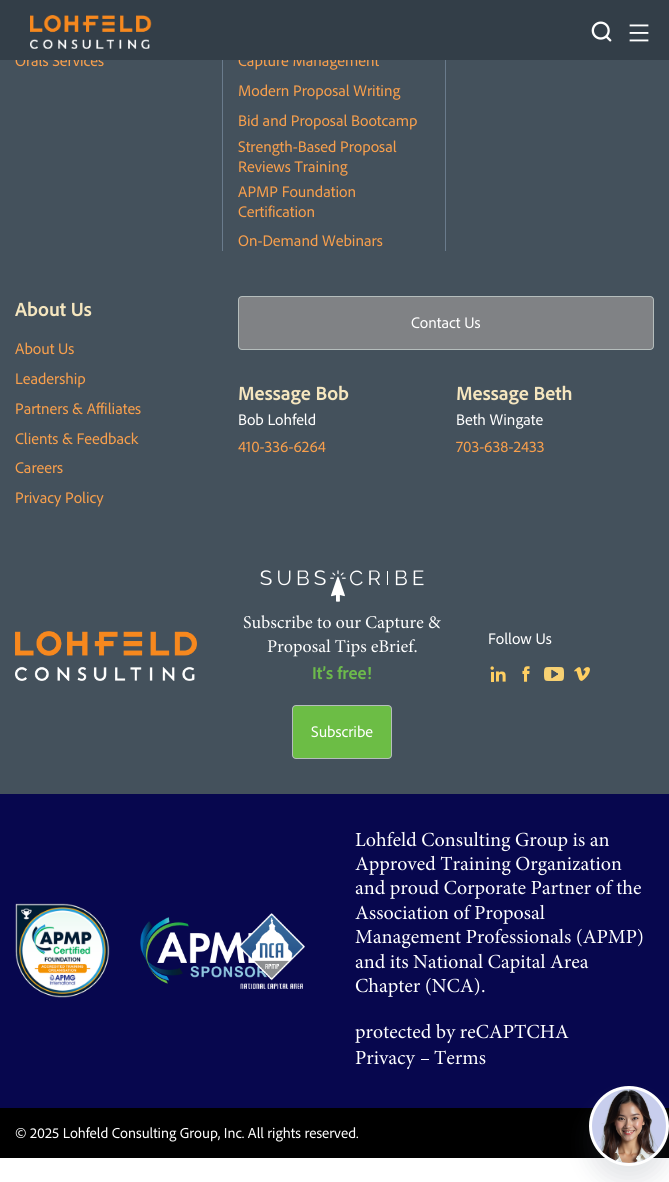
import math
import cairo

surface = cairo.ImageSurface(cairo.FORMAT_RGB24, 669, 1182)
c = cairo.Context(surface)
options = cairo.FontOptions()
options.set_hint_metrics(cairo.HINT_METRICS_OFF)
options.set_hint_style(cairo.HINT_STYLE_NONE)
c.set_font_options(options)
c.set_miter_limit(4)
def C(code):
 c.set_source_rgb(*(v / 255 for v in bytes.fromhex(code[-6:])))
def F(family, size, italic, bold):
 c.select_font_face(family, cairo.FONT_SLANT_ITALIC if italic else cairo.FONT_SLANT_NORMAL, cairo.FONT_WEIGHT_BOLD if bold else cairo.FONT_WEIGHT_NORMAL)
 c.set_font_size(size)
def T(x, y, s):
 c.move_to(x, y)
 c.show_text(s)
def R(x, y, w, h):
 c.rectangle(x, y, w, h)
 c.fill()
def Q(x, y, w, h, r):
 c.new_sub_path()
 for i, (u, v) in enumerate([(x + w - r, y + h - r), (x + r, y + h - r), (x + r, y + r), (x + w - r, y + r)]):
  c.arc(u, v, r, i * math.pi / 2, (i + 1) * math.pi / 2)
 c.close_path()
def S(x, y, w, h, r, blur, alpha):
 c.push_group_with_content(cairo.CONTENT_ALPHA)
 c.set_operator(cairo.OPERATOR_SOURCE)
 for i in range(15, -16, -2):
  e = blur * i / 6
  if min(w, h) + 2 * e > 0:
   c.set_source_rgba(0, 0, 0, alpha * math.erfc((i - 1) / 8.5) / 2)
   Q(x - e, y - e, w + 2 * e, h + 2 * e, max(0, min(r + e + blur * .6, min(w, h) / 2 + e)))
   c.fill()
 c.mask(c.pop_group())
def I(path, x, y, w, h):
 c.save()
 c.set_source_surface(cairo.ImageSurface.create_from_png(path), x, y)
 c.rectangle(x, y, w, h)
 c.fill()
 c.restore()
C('ffffff')
c.paint()
C('44515c')
R(0,60,669,734)
F('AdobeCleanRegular',16,0,0)
C('f89f4c')
T(15,66,'Orals Services')
T(238,66,'Capture Management')
C('333e48')
R(0,0,669,60)
I('1.png',30,15,122,34)
I('2.png',591,21,21,21)
I('3.png',629,24,20,18)
C('000000')
R(0,1108,669,50)
C('6a7b8c')
R(222,60,1,191)
R(445,60,1,191)
C('f89f4c')
T(238,96,'Modern Proposal Writing')
T(238,126,'Bid and Proposal Bootcamp')
T(238,152,'Strength-Based Proposal')
T(238,172,'Reviews Training')
T(238,197,'APMP Foundation')
T(238,217,'Certification')
T(238,246,'On-Demand Webinars')
F('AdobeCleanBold',20,0,1)
C('f5e6bf')
T(15,316,'About Us')
F('AdobeCleanRegular',16,0,0)
C('f89f4c')
T(15,354,'About Us')
T(15,384,'Leadership')
T(15,414,'Partners & Affiliates')
T(15,444,'Clients & Feedback')
T(15,473,'Careers')
T(15,503,'Privacy Policy')
C('808285')
Q(238.5,296.5,415,53,3.5)
c.fill_preserve()
C('b5bdbc')
c.set_line_width(1)
c.stroke()
C('ffffff')
T(411,328,'Contact Us')
F('AdobeCleanBold',20,0,1)
C('f5e6bf')
T(238,400,'Message Bob')
F('AdobeCleanRegular',16,0,0)
C('ffffff')
T(238,425,'Bob Lohfeld')
C('f89f4c')
T(238,452,'410-336-6264')
F('AdobeCleanBold',20,0,1)
C('f5e6bf')
T(456,400,'Message Beth')
F('AdobeCleanRegular',16,0,0)
C('ffffff')
T(456,425,'Beth Wingate')
C('f89f4c')
T(456,452,'703-638-2433')
I('4.png',15,631,182,50)
C('ffffff')
T(488,644,'Follow Us')
I('5.png',490,666,16,16)
I('6.png',522,666,8,16)
I('7.png',544,667,20,14)
I('8.png',574,667,16,14)
I('9.png',260,570,164,32)
I('10.png',243,615,198,18)
I('11.png',267,639,150,18)
F('AdobeCleanBold',18,0,1)
C('6cba4b')
T(312,679,'It’s free!')
C('6cbd45')
Q(292.5,705.5,99,53,3.5)
c.fill_preserve()
C('b5bdbc')
c.stroke()
F('AdobeCleanRegular',16,0,0)
C('ffffff')
T(311,737,'Subscribe')
C('07074e')
R(0,794,669,314)
I('12.png',15,903,95,95)
I('13.png',140,917,127,67)
I('14.png',240,913,65,76)
I('15.png',355,831,254,21)
I('16.png',355,855,267,21)
I('17.png',355,879,286,20)
I('18.png',355,904,190,20)
I('19.png',355,928,288,21)
I('20.png',355,953,53,16)
I('21.png',413,953,176,20)
I('22.png',355,977,125,20)
I('23.png',482,990,3,3)
I('24.png',355,1023,214,21)
I('25.png',355,1051,61,19)
C('ffffff')
R(421,1059,8,1)
I('26.png',434,1050,52,15)
F('AdobeCleanRegular',15,0,0)
T(15,1138,'© 2025 Lohfeld Consulting Group, Inc. All rights reserved.')
C('545f6f')
S(589,1102,80,80,40,12,.16)
C('c8ceed')
c.arc(629,1126,38.5,0,2 * math.pi)
c.fill_preserve()
C('ffffff')
c.set_line_width(3)
c.stroke()
I('27.png',597,1089,61,74)
surface.write_to_png('o.png')
